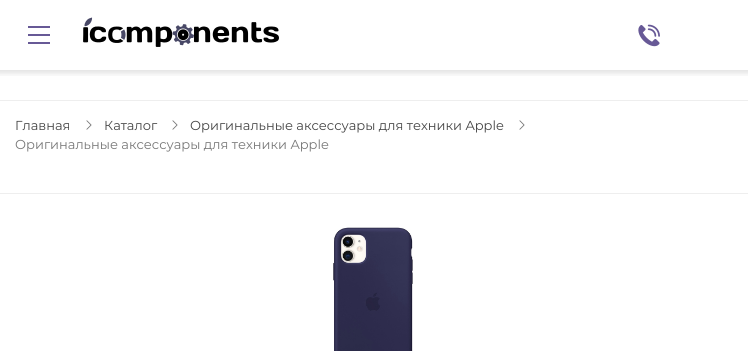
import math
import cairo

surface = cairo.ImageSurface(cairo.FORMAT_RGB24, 748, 351)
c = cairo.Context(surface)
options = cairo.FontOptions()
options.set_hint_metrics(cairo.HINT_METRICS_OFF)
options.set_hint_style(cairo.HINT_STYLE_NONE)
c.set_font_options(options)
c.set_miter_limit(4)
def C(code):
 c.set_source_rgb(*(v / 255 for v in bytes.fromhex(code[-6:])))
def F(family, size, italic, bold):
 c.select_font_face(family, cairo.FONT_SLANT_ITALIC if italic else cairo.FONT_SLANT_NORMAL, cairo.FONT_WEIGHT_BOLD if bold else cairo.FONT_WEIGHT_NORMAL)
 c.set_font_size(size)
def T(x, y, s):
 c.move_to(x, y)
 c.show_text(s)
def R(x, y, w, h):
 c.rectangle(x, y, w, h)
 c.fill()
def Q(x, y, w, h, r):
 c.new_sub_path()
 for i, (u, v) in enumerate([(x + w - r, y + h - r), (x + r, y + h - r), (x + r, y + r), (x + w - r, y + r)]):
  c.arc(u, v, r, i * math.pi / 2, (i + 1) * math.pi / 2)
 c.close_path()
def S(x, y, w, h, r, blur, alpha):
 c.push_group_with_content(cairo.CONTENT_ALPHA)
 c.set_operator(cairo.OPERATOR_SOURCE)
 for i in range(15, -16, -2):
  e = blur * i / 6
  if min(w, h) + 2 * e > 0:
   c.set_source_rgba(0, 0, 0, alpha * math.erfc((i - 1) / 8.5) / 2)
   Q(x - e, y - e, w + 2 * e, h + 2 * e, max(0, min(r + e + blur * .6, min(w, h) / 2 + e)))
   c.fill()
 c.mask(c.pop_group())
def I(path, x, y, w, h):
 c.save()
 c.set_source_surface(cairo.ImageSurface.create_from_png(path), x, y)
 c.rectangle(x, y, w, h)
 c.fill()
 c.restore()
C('ffffff')
c.paint()
c.save()
c.rectangle(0,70,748,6)
c.clip()
C('000000')
S(-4,-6,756,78,0,4,.15)
c.restore()
C('675996')
R(28,34,22,2)
R(28,26,22,2)
R(28,42,22,2)
I('1.png',83,17,196,30)
I('2.png',638,24,22,23)
C('eeeeee')
R(0,100,748,1)
R(0,193,748,1)
F('Montserrat Thin',13,0,0)
C('444444')
T(15,130,'Главная')
I('3.png',86,120,6,10)
T(104,130,'Каталог')
I('3.png',172,120,6,10)
T(190,130,'Оригинальные аксессуары для техники Apple')
I('3.png',519,120,6,10)
C('777777')
T(15,149,'Оригинальные аксессуары для техники Apple')
I('4.png',333,227,80,124)
surface.write_to_png('o.png')
